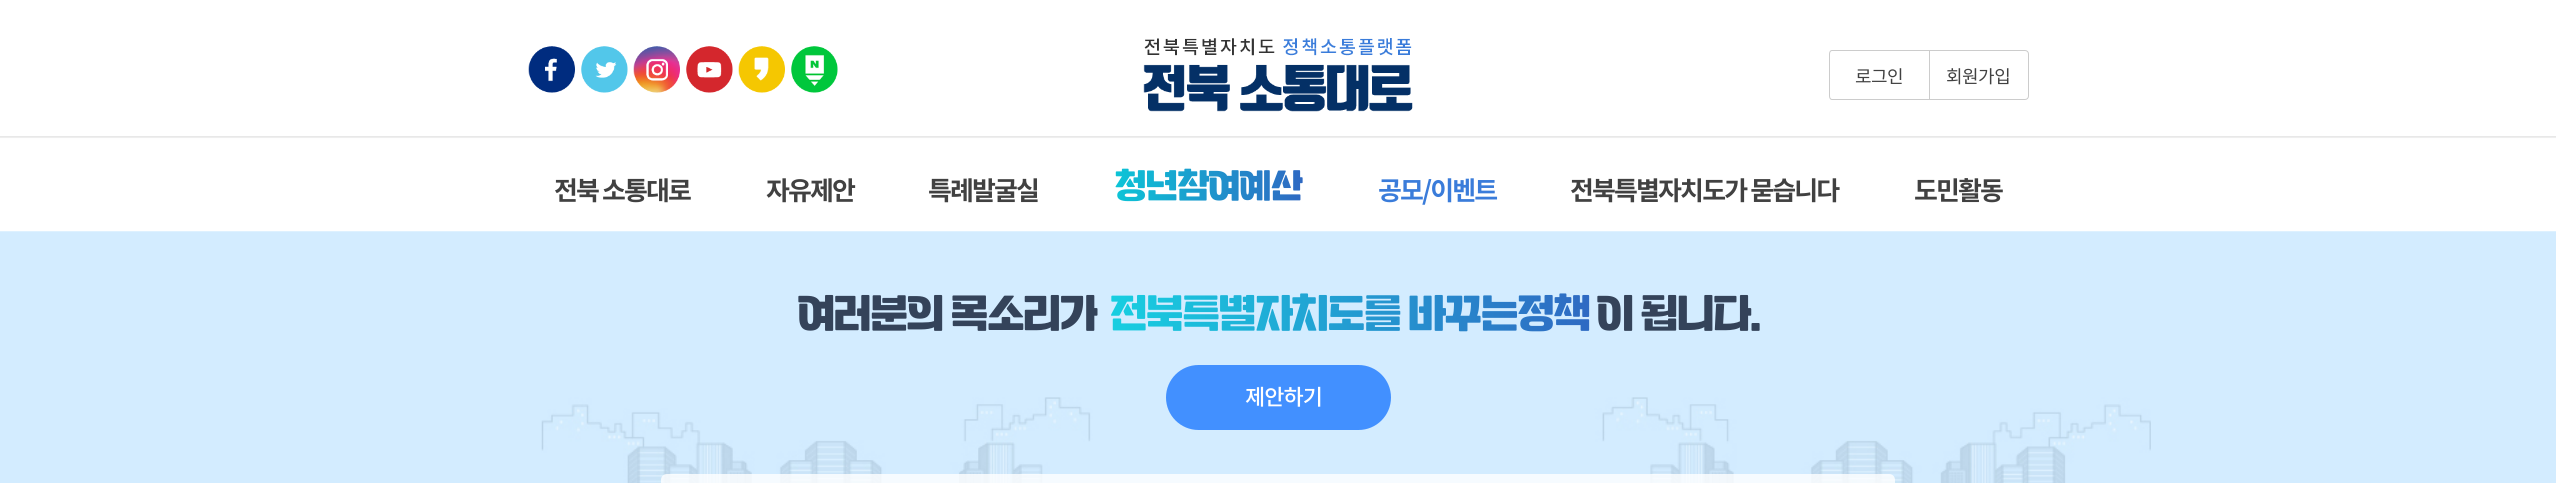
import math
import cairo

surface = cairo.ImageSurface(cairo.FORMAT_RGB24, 2556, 483)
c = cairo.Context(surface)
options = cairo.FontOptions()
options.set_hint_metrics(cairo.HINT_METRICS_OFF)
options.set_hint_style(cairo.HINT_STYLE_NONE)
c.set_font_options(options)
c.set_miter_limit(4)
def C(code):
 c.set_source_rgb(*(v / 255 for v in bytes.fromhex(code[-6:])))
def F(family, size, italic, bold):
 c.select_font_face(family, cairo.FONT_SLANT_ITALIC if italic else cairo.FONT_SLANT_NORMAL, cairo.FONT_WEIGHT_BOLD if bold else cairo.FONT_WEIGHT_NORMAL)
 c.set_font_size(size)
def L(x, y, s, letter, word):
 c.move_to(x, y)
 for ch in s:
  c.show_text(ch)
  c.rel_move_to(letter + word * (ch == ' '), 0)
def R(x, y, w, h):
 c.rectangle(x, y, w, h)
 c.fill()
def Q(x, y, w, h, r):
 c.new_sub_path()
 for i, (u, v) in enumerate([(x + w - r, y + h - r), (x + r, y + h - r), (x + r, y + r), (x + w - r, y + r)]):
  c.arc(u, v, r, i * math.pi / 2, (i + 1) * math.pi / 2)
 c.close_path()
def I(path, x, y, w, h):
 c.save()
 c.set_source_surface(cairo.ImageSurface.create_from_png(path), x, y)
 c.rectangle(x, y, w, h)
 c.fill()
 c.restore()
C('ffffff')
c.paint()
C('d3ecff')
R(0,231,2556,252)
I('1.png',0,136,2556,96)
I('2.png',528,46,47,47)
I('3.png',581,46,47,47)
I('4.png',633,46,47,47)
I('5.png',686,46,47,47)
I('6.png',738,46,47,47)
I('7.png',791,46,47,47)
I('8.png',1143,38,270,74)
C('cccccc')
c.set_fill_rule(cairo.FILL_RULE_EVEN_ODD)
c.new_path()
c.move_to(1832,50)
c.line_to(1929,50)
c.line_to(1929,100)
c.line_to(1832,100)
c.curve_to(1830,100,1829,98,1829,96)
c.line_to(1829,54)
c.curve_to(1829,52,1830,50,1832,50)
c.close_path()
c.move_to(1832,51)
c.line_to(1929,51)
c.line_to(1929,99)
c.line_to(1832,99)
c.curve_to(1831,99,1830,98,1830,96)
c.line_to(1830,54)
c.curve_to(1830,52,1831,51,1832,51)
c.close_path()
c.fill()
F('Noto Sans KR',18,0,0)
C('414141')
L(1855,83,'로그인',-.5,0)
c.new_path()
c.move_to(1929.5,50.5)
c.line_to(2025,50.5)
c.curve_to(2027,50.5,2028.5,52,2028.5,54)
c.line_to(2028.5,96)
c.curve_to(2028.5,98,2027,99.5,2025,99.5)
c.line_to(1929.5,99.5)
c.close_path()
C('cccccc')
c.set_line_width(1)
c.stroke()
C('414141')
L(1946,83,'회원가입',-.5,0)
F('Noto Sans KR',26,0,1)
L(554,200,'전북 소통대로',-1.9,0)
L(766,200,'자유제안',-1.9,0)
L(928,200,'특례발굴실',-1.9,0)
F('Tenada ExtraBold',37.5,0,0)
gradient = cairo.LinearGradient(1112,191,1304,191)
gradient.add_color_stop_rgba(0,0.047,0.776,0.843,1)
gradient.add_color_stop_rgba(1,0.184,0.408,0.761,1)
c.set_source(gradient)
L(1114,200,'청년참여예산',-1.9,0)
F('Noto Sans KR',26,0,1)
C('3a7cda')
L(1378,200,'공모/이벤트',-1.9,0)
C('414141')
L(1570,200,'전북특별자치도가 묻습니다',-1.9,0)
L(1914,200,'도민활동',-1.9,0)
I('9.png',541,397,1610,86)
F('Tenada ExtraBold',44,0,0)
C('34435a')
L(797,330,'여러분의 목소리가',-2.5,0)
gradient = cairo.LinearGradient(1103,319,1596,319)
gradient.add_color_stop_rgba(0,0.09,0.816,0.882,1)
gradient.add_color_stop_rgba(1,0.184,0.408,0.761,1)
c.set_source(gradient)
L(1109,330,'전북특별자치도를 바꾸는정책',-2.5,0)
C('34435a')
L(1596,330,'이 됩니다.',-2.5,0)
C('4290ff')
Q(1166,365,225,65,32.5)
c.fill()
F('Noto Sans KR Medium',22,0,0)
C('ffffff')
L(1245,405,'제안하기',-1,0)
c.set_source_rgba(1,1,1,0.8)
c.new_path()
c.move_to(667,474)
c.line_to(1889,474)
c.curve_to(1892.5,474,1895,476.5,1895,480)
c.line_to(1895,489)
c.line_to(661,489)
c.line_to(661,480)
c.curve_to(661,476.5,663.5,474,667,474)
c.close_path()
c.fill()
surface.write_to_png('o.png')
